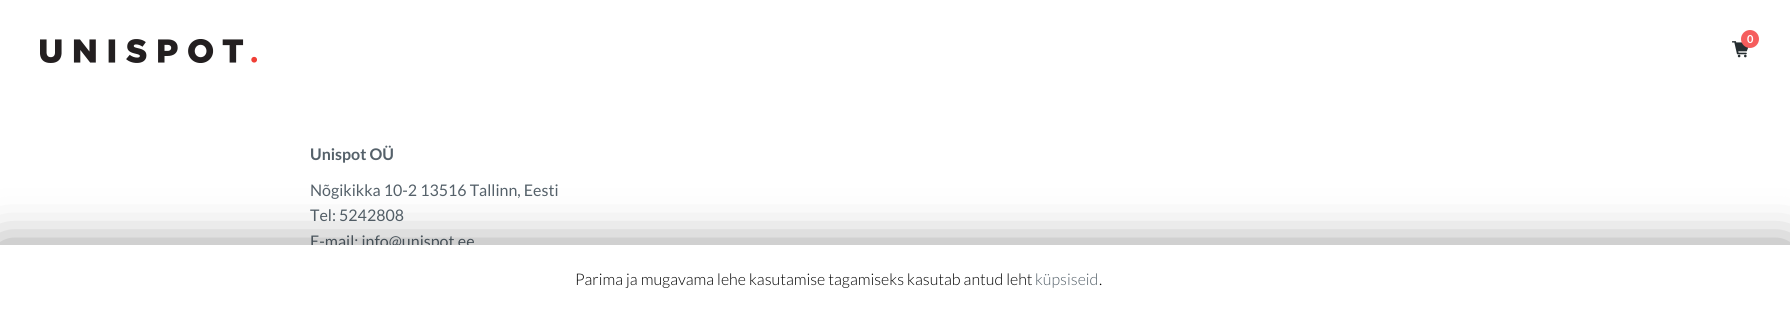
import math
import cairo

surface = cairo.ImageSurface(cairo.FORMAT_RGB24, 1790, 315)
c = cairo.Context(surface)
options = cairo.FontOptions()
options.set_hint_metrics(cairo.HINT_METRICS_OFF)
options.set_hint_style(cairo.HINT_STYLE_NONE)
c.set_font_options(options)
c.set_miter_limit(4)
def C(code):
 c.set_source_rgb(*(v / 255 for v in bytes.fromhex(code[-6:])))
def F(family, size, italic, bold):
 c.select_font_face(family, cairo.FONT_SLANT_ITALIC if italic else cairo.FONT_SLANT_NORMAL, cairo.FONT_WEIGHT_BOLD if bold else cairo.FONT_WEIGHT_NORMAL)
 c.set_font_size(size)
def T(x, y, s):
 c.move_to(x, y)
 c.show_text(s)
def R(x, y, w, h):
 c.rectangle(x, y, w, h)
 c.fill()
def Q(x, y, w, h, r):
 c.new_sub_path()
 for i, (u, v) in enumerate([(x + w - r, y + h - r), (x + r, y + h - r), (x + r, y + r), (x + w - r, y + r)]):
  c.arc(u, v, r, i * math.pi / 2, (i + 1) * math.pi / 2)
 c.close_path()
def S(x, y, w, h, r, blur, alpha):
 c.push_group_with_content(cairo.CONTENT_ALPHA)
 c.set_operator(cairo.OPERATOR_SOURCE)
 for i in range(15, -16, -2):
  e = blur * i / 6
  if min(w, h) + 2 * e > 0:
   c.set_source_rgba(0, 0, 0, alpha * math.erfc((i - 1) / 8.5) / 2)
   Q(x - e, y - e, w + 2 * e, h + 2 * e, max(0, min(r + e + blur * .6, min(w, h) / 2 + e)))
   c.fill()
 c.mask(c.pop_group())
def I(path, x, y, w, h):
 c.save()
 c.set_source_surface(cairo.ImageSurface.create_from_png(path), x, y)
 c.rectangle(x, y, w, h)
 c.fill()
 c.restore()
C('ffffff')
c.paint()
I('1.png',40,39,217,24)
I('2.png',1732,41,17,17)
C('f55d5d')
c.arc(1750,39,9,0,2 * math.pi)
c.fill()
F('Lato',11,0,1)
C('ffffff')
T(1747,43,'0')
F('Lato',16,0,1)
C('55616a')
T(310,160,'Unispot OÜ')
F('Lato',16,0,0)
T(310,196,'Nõgikikka 10-2 13516 Tallinn, Eesti')
T(310,221,'Tel: 5242808')
T(310,247,'E-mail: info@unispot.ee')
C('000000')
S(0,250,1790,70,0,25,.5)
C('ffffff')
R(0,245,1790,70)
F('Lato Light',16,0,0)
C('000000')
T(575,285,'Parima ja mugavama lehe kasutamise tagamiseks kasutab antud leht')
C('55616a')
T(1035,285,'küpsiseid')
C('000000')
T(1099,285,'.')
surface.write_to_png('o.png')
